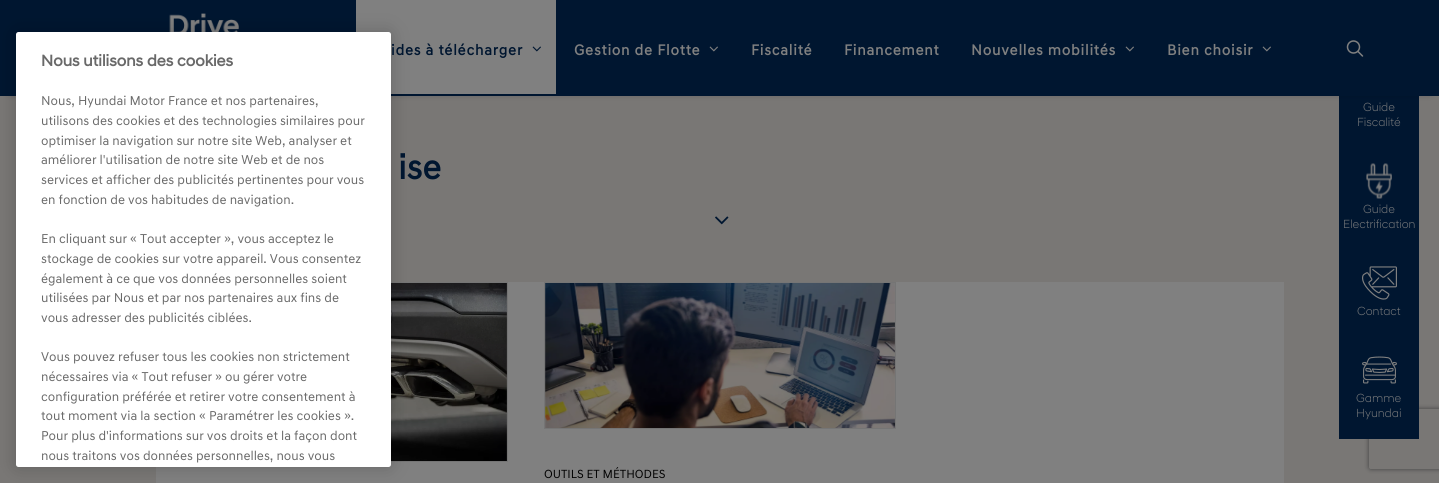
import math
import cairo

surface = cairo.ImageSurface(cairo.FORMAT_RGB24, 1439, 483)
c = cairo.Context(surface)
options = cairo.FontOptions()
options.set_hint_metrics(cairo.HINT_METRICS_OFF)
options.set_hint_style(cairo.HINT_STYLE_NONE)
c.set_font_options(options)
c.set_miter_limit(4)
def C(code):
 c.set_source_rgb(*(v / 255 for v in bytes.fromhex(code[-6:])))
def F(family, size, italic, bold):
 c.select_font_face(family, cairo.FONT_SLANT_ITALIC if italic else cairo.FONT_SLANT_NORMAL, cairo.FONT_WEIGHT_BOLD if bold else cairo.FONT_WEIGHT_NORMAL)
 c.set_font_size(size)
def T(x, y, s):
 c.move_to(x, y)
 c.show_text(s)
def L(x, y, s, letter, word):
 c.move_to(x, y)
 for ch in s:
  c.show_text(ch)
  c.rel_move_to(letter + word * (ch == ' '), 0)
def R(x, y, w, h):
 c.rectangle(x, y, w, h)
 c.fill()
def Q(x, y, w, h, r):
 c.new_sub_path()
 for i, (u, v) in enumerate([(x + w - r, y + h - r), (x + r, y + h - r), (x + r, y + r), (x + w - r, y + r)]):
  c.arc(u, v, r, i * math.pi / 2, (i + 1) * math.pi / 2)
 c.close_path()
def S(x, y, w, h, r, blur, alpha):
 c.push_group_with_content(cairo.CONTENT_ALPHA)
 c.set_operator(cairo.OPERATOR_SOURCE)
 for i in range(15, -16, -2):
  e = blur * i / 6
  if min(w, h) + 2 * e > 0:
   c.set_source_rgba(0, 0, 0, alpha * math.erfc((i - 1) / 8.5) / 2)
   Q(x - e, y - e, w + 2 * e, h + 2 * e, max(0, min(r + e + blur * .6, min(w, h) / 2 + e)))
   c.fill()
 c.mask(c.pop_group())
def I(path, x, y, w, h):
 c.save()
 c.set_source_surface(cairo.ImageSurface.create_from_png(path), x, y)
 c.rectangle(x, y, w, h)
 c.fill()
 c.restore()
C('797775')
c.paint()
c.save()
c.set_fill_rule(cairo.FILL_RULE_EVEN_ODD)
c.new_path()
c.move_to(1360,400)
c.line_to(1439,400)
c.line_to(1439,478)
c.line_to(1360,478)
c.close_path()
c.move_to(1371,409)
c.line_to(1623,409)
c.curve_to(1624,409,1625,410,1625,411)
c.line_to(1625,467)
c.curve_to(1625,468,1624,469,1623,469)
c.line_to(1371,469)
c.curve_to(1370,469,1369,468,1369,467)
c.line_to(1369,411)
c.curve_to(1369,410,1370,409,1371,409)
c.close_path()
c.clip()
C('404040')
S(1369,409,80,60,2,2.5,1)
c.restore()
C('001630')
R(1339,96,80,343)
C('000000')
S(10,14,1420,76,0,5,.6)
C('001630')
R(0,0,1439,96)
I('1.png',169,13,70,19)
C('808080')
R(356,0,200,94)
R(156,282,1128,201)
c.rectangle(156.5,282.5,351,179)
C('757575')
c.set_line_width(1)
c.stroke()
I('6.png',391,283,116,178)
C('000000')
S(16,32,375,435,2.5,9,.2)
C('ffffff')
Q(16,32,375,435,2.5)
c.fill()
F('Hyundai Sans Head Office',16,0,1)
C('696969')
T(41,66,'Nous utilisons des cookies')
F('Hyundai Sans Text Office',13.1,0,0)
T(41,105,'Nous, Hyundai Motor France et nos partenaires,')
T(41,125,'utilisons des cookies et des technologies similaires pour')
T(41,145,'optimiser la navigation sur notre site Web, analyser et')
T(41,164,'améliorer l\'utilisation de notre site Web et de nos')
T(41,184,'services et afficher des publicités pertinentes pour vous')
T(41,204,'en fonction de vos habitudes de navigation.')
T(41,243,'En cliquant sur « Tout accepter », vous acceptez le')
T(41,263,'stockage de cookies sur votre appareil. Vous consentez')
T(41,283,'également à ce que vos données personnelles soient')
T(41,302,'utilisées par Nous et par nos partenaires aux fins de')
T(41,322,'vous adresser des publicités ciblées.')
T(41,361,'Vous pouvez refuser tous les cookies non strictement')
T(41,381,'nécessaires via « Tout refuser » ou gérer votre')
T(41,401,'configuration préférée et retirer votre consentement à')
T(41,420,'tout moment via la section « Paramétrer les cookies ».')
T(41,440,'Pour plus d\'informations sur vos droits et la façon dont')
T(41,460,'nous traitons vos données personnelles, nous vous')
F('Hyundai Sans Text Office',15,0,1)
C('001630')
L(391,55,'ides à télécharger',.75,0)
I('2.png',532,46,9,6)
C('808080')
L(574,55,'Gestion de Flotte',.75,0)
I('3.png',709,46,9,6)
L(751,55,'Fiscalité',.75,0)
L(844,55,'Financement',.75,0)
L(971,55,'Nouvelles mobilités',.75,0)
I('3.png',1125,46,9,6)
L(1167,55,'Bien choisir',.75,0)
I('3.png',1262,46,9,6)
I('4.png',1346,40,18,17)
F('Hyundai Sans Text Office',35,0,1)
C('001630')
T(398,179,'ise')
I('5.png',715,216,14,9)
c.rectangle(544.5,282.5,351,146)
C('757575')
c.stroke()
I('7.png',545,283,350,145)
F('Hyundai Sans Text Office',12,0,0)
C('000000')
T(544,478,'OUTILS ET MÉTHODES')
F('Hyundai Sans Head Office Light',12,0,0)
C('808080')
T(1363,111,'Guide')
T(1357,126,'Fiscalité')
I('8.png',1366,163,26,36)
T(1363,213,'Guide')
T(1343,228,'Electrification')
I('9.png',1362,266,35,34)
T(1357,315,'Contact')
I('10.png',1362,356,35,28)
T(1356,402,'Gamme')
T(1356,417,'Hyundai')
surface.write_to_png('o.png')
